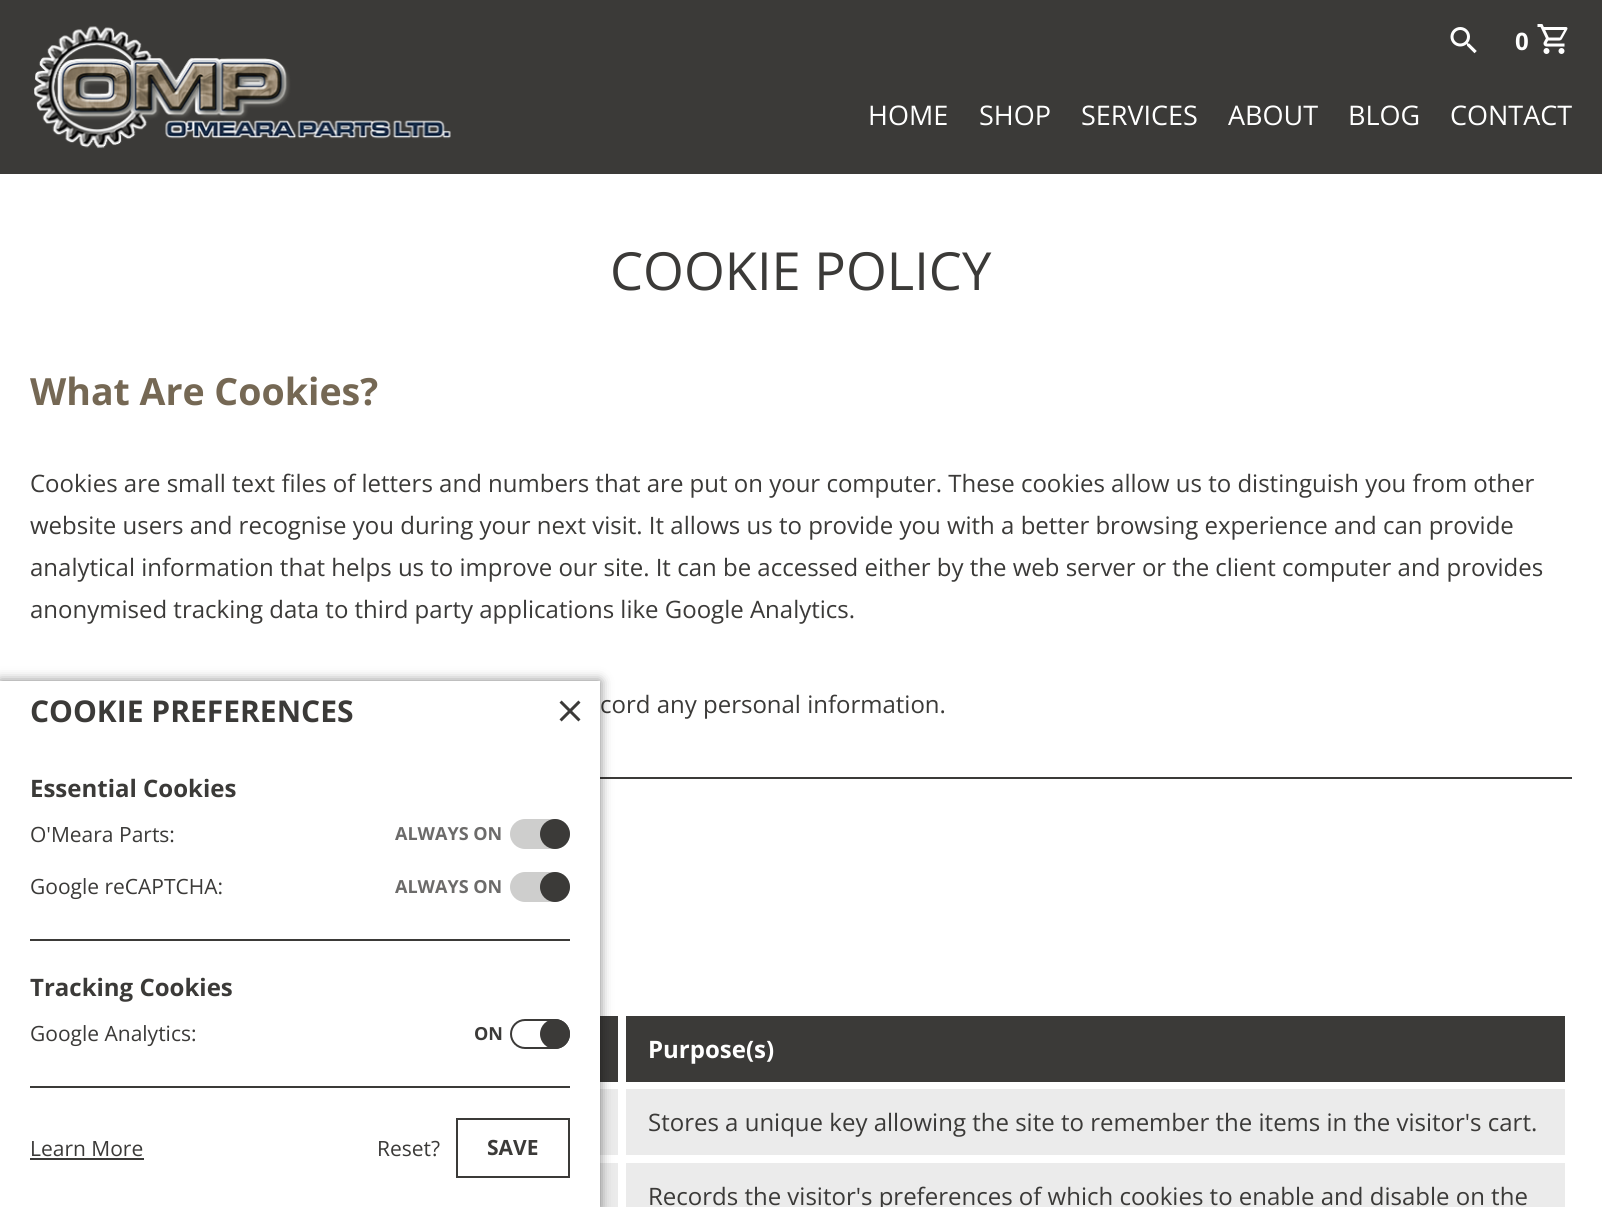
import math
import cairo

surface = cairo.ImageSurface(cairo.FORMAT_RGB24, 1602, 1207)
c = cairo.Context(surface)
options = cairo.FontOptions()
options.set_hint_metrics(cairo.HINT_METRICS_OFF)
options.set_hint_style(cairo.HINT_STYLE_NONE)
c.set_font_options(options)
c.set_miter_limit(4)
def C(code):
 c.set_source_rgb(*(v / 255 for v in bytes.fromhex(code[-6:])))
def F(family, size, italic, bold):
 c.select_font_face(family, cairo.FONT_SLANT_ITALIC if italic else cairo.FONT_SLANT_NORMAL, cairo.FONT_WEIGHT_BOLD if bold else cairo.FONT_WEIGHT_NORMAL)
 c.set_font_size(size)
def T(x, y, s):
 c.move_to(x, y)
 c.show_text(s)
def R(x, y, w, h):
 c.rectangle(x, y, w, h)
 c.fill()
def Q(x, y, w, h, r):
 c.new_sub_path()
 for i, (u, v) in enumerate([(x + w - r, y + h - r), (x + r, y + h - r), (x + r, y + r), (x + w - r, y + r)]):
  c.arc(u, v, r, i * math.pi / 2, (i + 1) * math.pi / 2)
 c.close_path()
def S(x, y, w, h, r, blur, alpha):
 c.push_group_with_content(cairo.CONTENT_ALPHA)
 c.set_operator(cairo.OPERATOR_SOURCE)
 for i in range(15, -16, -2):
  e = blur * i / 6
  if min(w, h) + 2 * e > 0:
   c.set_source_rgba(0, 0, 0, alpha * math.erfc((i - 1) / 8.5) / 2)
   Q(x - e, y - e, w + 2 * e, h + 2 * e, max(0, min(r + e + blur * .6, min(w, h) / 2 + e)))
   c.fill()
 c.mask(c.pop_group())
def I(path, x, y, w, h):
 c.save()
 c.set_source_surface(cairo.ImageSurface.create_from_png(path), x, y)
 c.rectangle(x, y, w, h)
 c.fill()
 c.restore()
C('ffffff')
c.paint()
C('3b3a38')
R(0,0,1602,174)
I('1.png',34,26,417,123)
F('Open Sans',24,0,1)
C('ffffff')
T(1515,50,'0')
I('2.png',1537,24,31,30)
I('3.png',1450,27,27,27)
F('Open Sans',27,0,0)
T(868,125,'HOME')
T(979,125,'SHOP')
T(1081,125,'SERVICES')
T(1228,125,'ABOUT')
T(1348,125,'BLOG')
T(1450,125,'CONTACT')
F('Open Sans',52.5,0,0)
C('3b3a38')
T(610,290,'COOKIE POLICY')
F('Open Sans',37.5,0,1)
C('756854')
T(30,405,'What Are Cookies?')
F('Open Sans',24,0,0)
C('3b3a38')
T(30,492,'Cookies are small text files of letters and numbers that are put on your computer. These cookies allow us to distinguish you from other')
T(30,534,'website users and recognise you during your next visit. It allows us to provide you with a better browsing experience and can provide')
T(30,576,'analytical information that helps us to improve our site. It can be accessed either by the web server or the client computer and provides')
T(30,618,'anonymised tracking data to third party applications like Google Analytics.')
T(600,713,'cord any personal information.')
R(600,777,972,2)
R(600,1016,18,66)
R(626,1016,939,66)
F('Open Sans',24,0,1)
C('ffffff')
T(648,1058,'Purpose(s)')
C('ebebeb')
R(600,1089,18,66)
R(626,1089,939,66)
F('Open Sans',24,0,0)
C('3b3a38')
T(648,1131,'Stores a unique key allowing the site to remember the items in the visitor\'s cart.')
C('ebebeb')
R(600,1163,18,44)
R(626,1163,939,44)
C('3b3a38')
T(648,1205,'Records the visitor\'s preferences of which cookies to enable and disable on the')
C('000000')
S(0,681,600,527,0,6,.5)
C('ffffff')
R(0,681,600,526)
F('Open Sans',30,0,1)
C('3b3a38')
T(30,722,'COOKIE PREFERENCES')
R(30,939,540,2)
F('Open Sans',24,0,1)
T(30,797,'Essential Cookies')
C('cececd')
Q(510,819,60,30,15)
c.fill()
F('Open Sans',21,0,0)
C('3b3a38')
T(30,842,'O\'Meara Parts:')
F('Open Sans',18,0,1)
C('6c6b6a')
T(395,840,'ALWAYS ON')
C('3b3a38')
c.new_path()
c.arc(555,834,15,0,2 * math.pi)
c.fill()
C('cececd')
Q(510,872,60,30,15)
c.fill()
F('Open Sans',21,0,0)
C('3b3a38')
T(30,894,'Google reCAPTCHA:')
F('Open Sans',18,0,1)
C('6c6b6a')
T(395,893,'ALWAYS ON')
C('3b3a38')
c.new_path()
c.arc(555,887,15,0,2 * math.pi)
c.fill()
R(30,1086,540,2)
F('Open Sans',24,0,1)
T(30,996,'Tracking Cookies')
Q(511,1020,58,28,14)
c.stroke()
F('Open Sans',21,0,0)
T(30,1041,'Google Analytics:')
F('Open Sans',18,0,1)
T(474,1040,'ON')
c.new_path()
c.arc(555,1034,15,0,2 * math.pi)
c.fill()
I('4.png',559,700,22,22)
F('Open Sans',21,0,0)
T(30,1156,'Learn More')
R(30,1158,114,2)
T(377,1156,'Reset?')
c.rectangle(457,1119,112,58)
c.stroke()
F('Open Sans',21,0,1)
T(487,1155,'SAVE')
surface.write_to_png('o.png')
